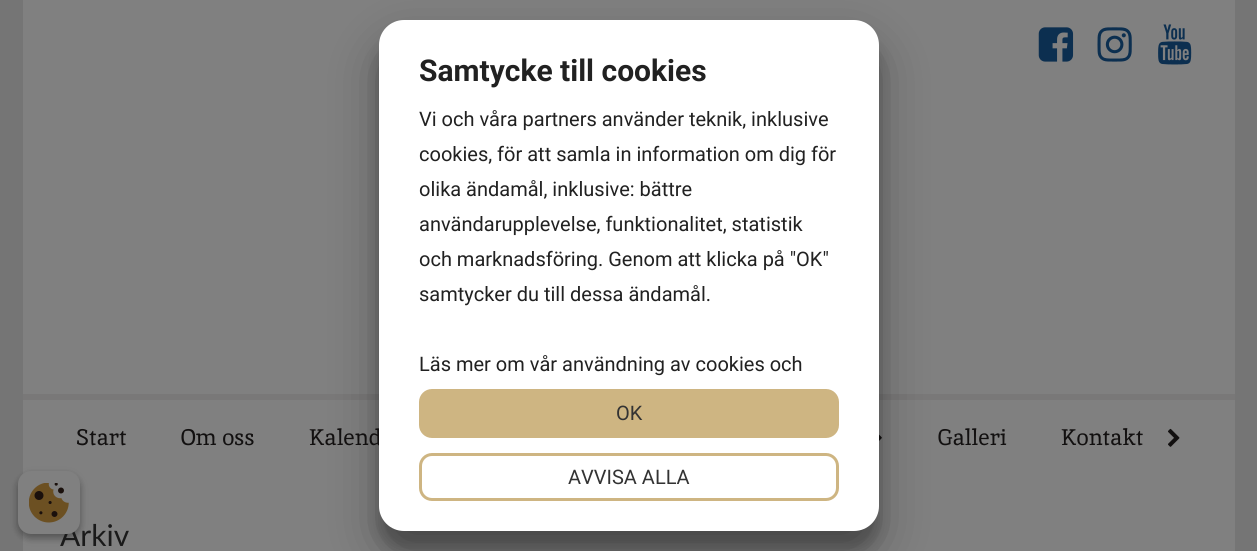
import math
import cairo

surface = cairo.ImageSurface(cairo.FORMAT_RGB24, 1257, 551)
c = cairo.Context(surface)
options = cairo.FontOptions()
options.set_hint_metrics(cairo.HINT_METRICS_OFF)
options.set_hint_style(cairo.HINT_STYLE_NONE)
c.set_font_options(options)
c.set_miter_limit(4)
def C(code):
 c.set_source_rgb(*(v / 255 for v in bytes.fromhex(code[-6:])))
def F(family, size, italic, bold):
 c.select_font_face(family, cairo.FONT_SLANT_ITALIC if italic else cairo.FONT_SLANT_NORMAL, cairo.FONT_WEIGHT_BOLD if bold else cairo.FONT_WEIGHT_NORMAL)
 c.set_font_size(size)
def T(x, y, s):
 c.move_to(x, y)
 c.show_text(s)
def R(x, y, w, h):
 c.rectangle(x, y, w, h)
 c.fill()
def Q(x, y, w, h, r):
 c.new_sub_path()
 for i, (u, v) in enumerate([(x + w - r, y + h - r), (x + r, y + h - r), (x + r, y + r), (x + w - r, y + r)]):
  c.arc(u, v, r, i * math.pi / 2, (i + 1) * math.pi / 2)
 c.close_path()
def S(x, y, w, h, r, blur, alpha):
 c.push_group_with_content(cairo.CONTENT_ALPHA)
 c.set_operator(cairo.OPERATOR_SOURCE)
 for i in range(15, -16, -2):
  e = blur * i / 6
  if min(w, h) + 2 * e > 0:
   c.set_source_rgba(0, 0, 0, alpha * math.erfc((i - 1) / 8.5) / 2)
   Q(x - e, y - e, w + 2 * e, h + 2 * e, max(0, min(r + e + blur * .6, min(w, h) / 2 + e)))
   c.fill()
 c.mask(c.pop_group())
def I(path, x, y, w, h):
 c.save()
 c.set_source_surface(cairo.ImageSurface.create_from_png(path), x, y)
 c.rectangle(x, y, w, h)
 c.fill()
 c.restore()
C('757575')
c.paint()
C('808080')
R(23,0,1212,551)
C('797878')
R(23,394,1212,6)
I('4.png',879,434,3,7)
C('000000')
S(379,39,500,511,25,7.5,.22)
S(379,44,500,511,25,24,.3)
F('Inika',22.5,0,0)
C('121010')
T(309,445,'Kalend')
C('ffffff')
Q(379,20,500,511,25)
c.fill()
F('Roboto',30,0,1)
C('212121')
T(419,81,'Samtycke till cookies')
F('Roboto',20,0,0)
T(419,126,'Vi och våra partners använder teknik, inklusive')
T(419,161,'cookies, för att samla in information om dig för')
T(419,196,'olika ändamål, inklusive: bättre')
T(419,231,'användarupplevelse, funktionalitet, statistik')
T(419,266,'och marknadsföring. Genom att klicka på "OK"')
T(419,301,'samtycker du till dessa ändamål.')
T(419,371,'Läs mer om vår användning av cookies och')
C('ceb582')
Q(420.5,390.5,417,46,11.5)
c.fill_preserve()
c.set_line_width(3)
c.stroke()
C('333333')
T(616,420,'OK')
Q(420.5,454.5,417,45,11.5)
C('ceb582')
c.stroke()
C('333333')
T(568,484,'AVVISA ALLA')
I('1.png',1038,27,36,35)
I('2.png',1097,27,35,35)
I('3.png',1158,24,34,41)
F('Inika',22.5,0,0)
C('121010')
T(76,445,'Start')
T(181,445,'Om oss')
T(938,445,'Galleri')
T(1061,445,'Kontakt')
I('5.png',1168,428,12,19)
C('000000')
S(18,475,62,63,13,4,.23)
S(18,475,62,63,13,4,.16)
F('Lato',30,0,0)
C('1a1a1a')
T(60,546,'Arkiv')
C('808080')
Q(18,471,62,63,13)
c.fill()
I('6.png',29,483,40,40)
surface.write_to_png('o.png')
